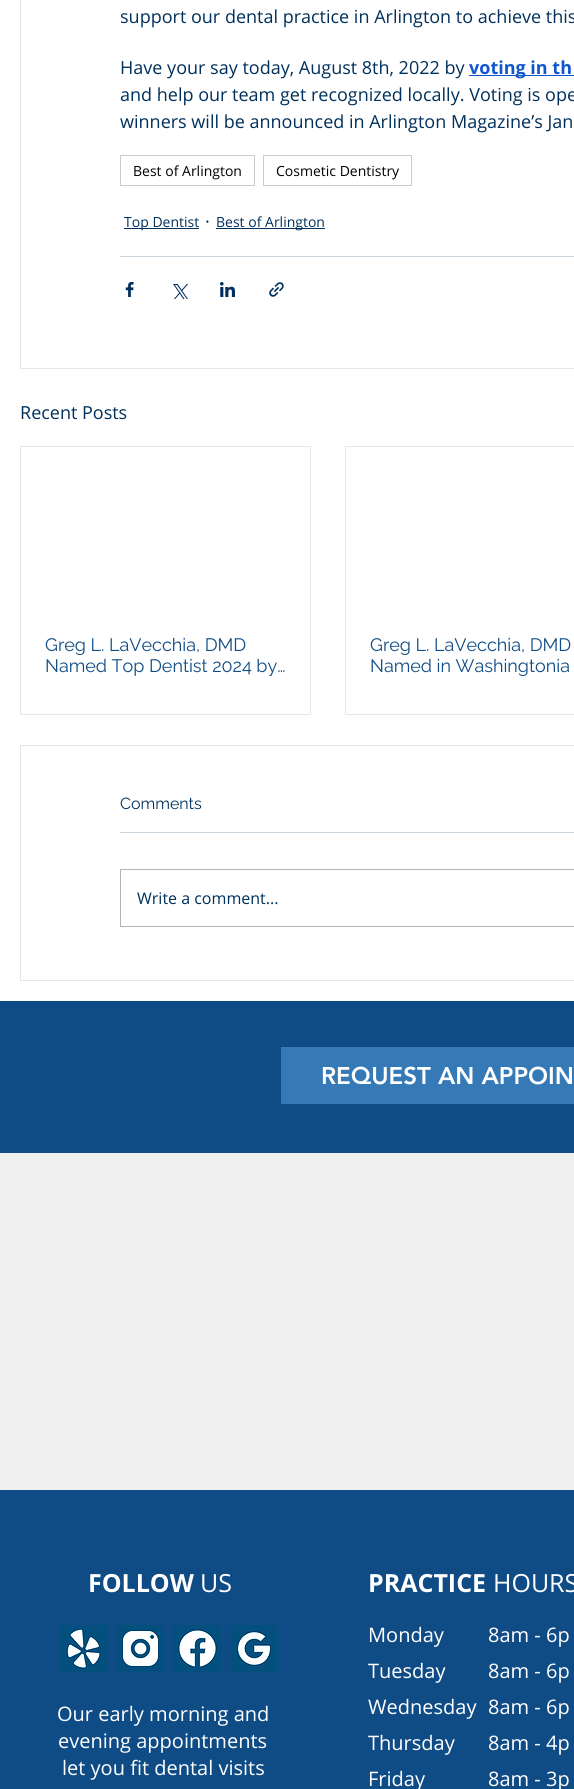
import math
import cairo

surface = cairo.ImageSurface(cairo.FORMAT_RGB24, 574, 1789)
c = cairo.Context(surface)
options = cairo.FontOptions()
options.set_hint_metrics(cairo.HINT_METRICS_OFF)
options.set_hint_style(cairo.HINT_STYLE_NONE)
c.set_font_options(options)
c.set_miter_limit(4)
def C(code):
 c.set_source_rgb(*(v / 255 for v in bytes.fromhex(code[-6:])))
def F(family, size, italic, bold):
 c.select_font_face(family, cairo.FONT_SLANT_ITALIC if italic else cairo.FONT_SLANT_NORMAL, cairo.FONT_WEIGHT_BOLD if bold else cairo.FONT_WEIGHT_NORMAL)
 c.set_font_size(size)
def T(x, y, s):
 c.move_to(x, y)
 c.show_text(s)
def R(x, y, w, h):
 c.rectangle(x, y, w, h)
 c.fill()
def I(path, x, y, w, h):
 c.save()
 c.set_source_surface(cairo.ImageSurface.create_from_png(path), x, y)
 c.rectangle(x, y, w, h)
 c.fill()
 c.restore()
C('f0f0f0')
c.paint()
C('ffffff')
R(0,0,574,1001)
c.rectangle(20.5,-.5,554,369)
C('e6e6e6')
c.set_line_width(1)
c.stroke()
F('Open Sans',18,0,0)
C('00305b')
T(120,23,'support our dental practice in Arlington to achieve this')
T(120,74,'Have your say today, August 8th, 2022 by')
C('1155cc')
R(469,75,105,1)
F('Open Sans',18,0,1)
T(469,74,'voting in th')
F('Open Sans',18,0,0)
C('00305b')
T(120,101,'and help our team get recognized locally. Voting is ope')
T(120,128,'winners will be announced in Arlington Magazine’s Jan')
c.rectangle(120.5,155.5,134,30)
C('cccccc')
c.stroke()
F('Open Sans',14,0,0)
C('000000')
T(133,176,'Best of Arlington')
c.rectangle(263.5,155.5,148,30)
C('cccccc')
c.stroke()
C('000000')
T(276,176,'Cosmetic Dentistry')
C('00305b')
R(124,228,75,1)
T(124,227,'Top Dentist')
F('Open Sans',18,0,0)
T(205,228,'·')
R(216,228,109,1)
F('Open Sans',14,0,0)
T(216,227,'Best of Arlington')
C('ccd6de')
R(120,256,454,1)
I('1.png',125,282,9,15)
I('2.png',173,284,15,15)
I('3.png',220,282,15,15)
I('4.png',269,282,15,15)
F('Open Sans',18,0,0)
C('00305b')
T(20,419,'Recent Posts')
c.rectangle(20.5,446.5,290,268)
C('e6e6e6')
c.stroke()
F('Raleway',18,0,0)
C('0f4c85')
T(45,651,'Greg L. LaVecchia, DMD')
T(45,672,'Named Top Dentist 2024 by…')
c.rectangle(345.5,446.5,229,268)
C('e6e6e6')
c.stroke()
C('0f4c85')
T(370,651,'Greg L. LaVecchia, DMD')
T(370,672,'Named in Washingtonia')
c.rectangle(20.5,745.5,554,235)
C('e6e6e6')
c.stroke()
F('Raleway',16,0,0)
C('00305b')
T(120,809,'Comments')
C('ccd6de')
R(120,832,454,1)
c.rectangle(120.5,869.5,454,57)
C('b3b3b3')
c.stroke()
F('Open Sans',16,0,0)
C('00305b')
T(137,904,'Write a comment...')
C('0f4c85')
R(0,1001,574,152)
C('3579b7')
R(281,1047,293,57)
F('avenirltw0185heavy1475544 Black',24,0,0)
C('ffffff')
T(321,1084,'REQUEST AN APPOIN')
C('0f4c85')
R(0,1490,574,299)
F('Open Sans',25,0,1)
C('ffffff')
T(88,1592,'FOLLOW')
F('Open Sans',25,0,0)
T(200,1592,'US')
F('Open Sans',25,0,1)
T(368,1592,'PRACTICE')
F('Open Sans',25,0,0)
T(493,1592,'HOURS')
I('5.png',60,1625,47,47)
I('6.png',117,1625,47,47)
I('7.png',174,1625,47,47)
I('8.png',231,1625,47,47)
F('Open Sans',20,0,0)
T(368,1642,'Monday')
T(368,1678,'Tuesday')
T(368,1714,'Wednesday')
T(368,1750,'Thursday')
T(368,1786,'Friday')
T(488,1642,'8am - 6p')
T(488,1678,'8am - 6p')
T(488,1714,'8am - 6p')
T(488,1750,'8am - 4p')
T(488,1786,'8am - 3p')
T(57,1721,'Our early morning and')
T(58,1748,'evening appointments')
T(62,1775,'let you fit dental visits')
surface.write_to_png('o.png')
